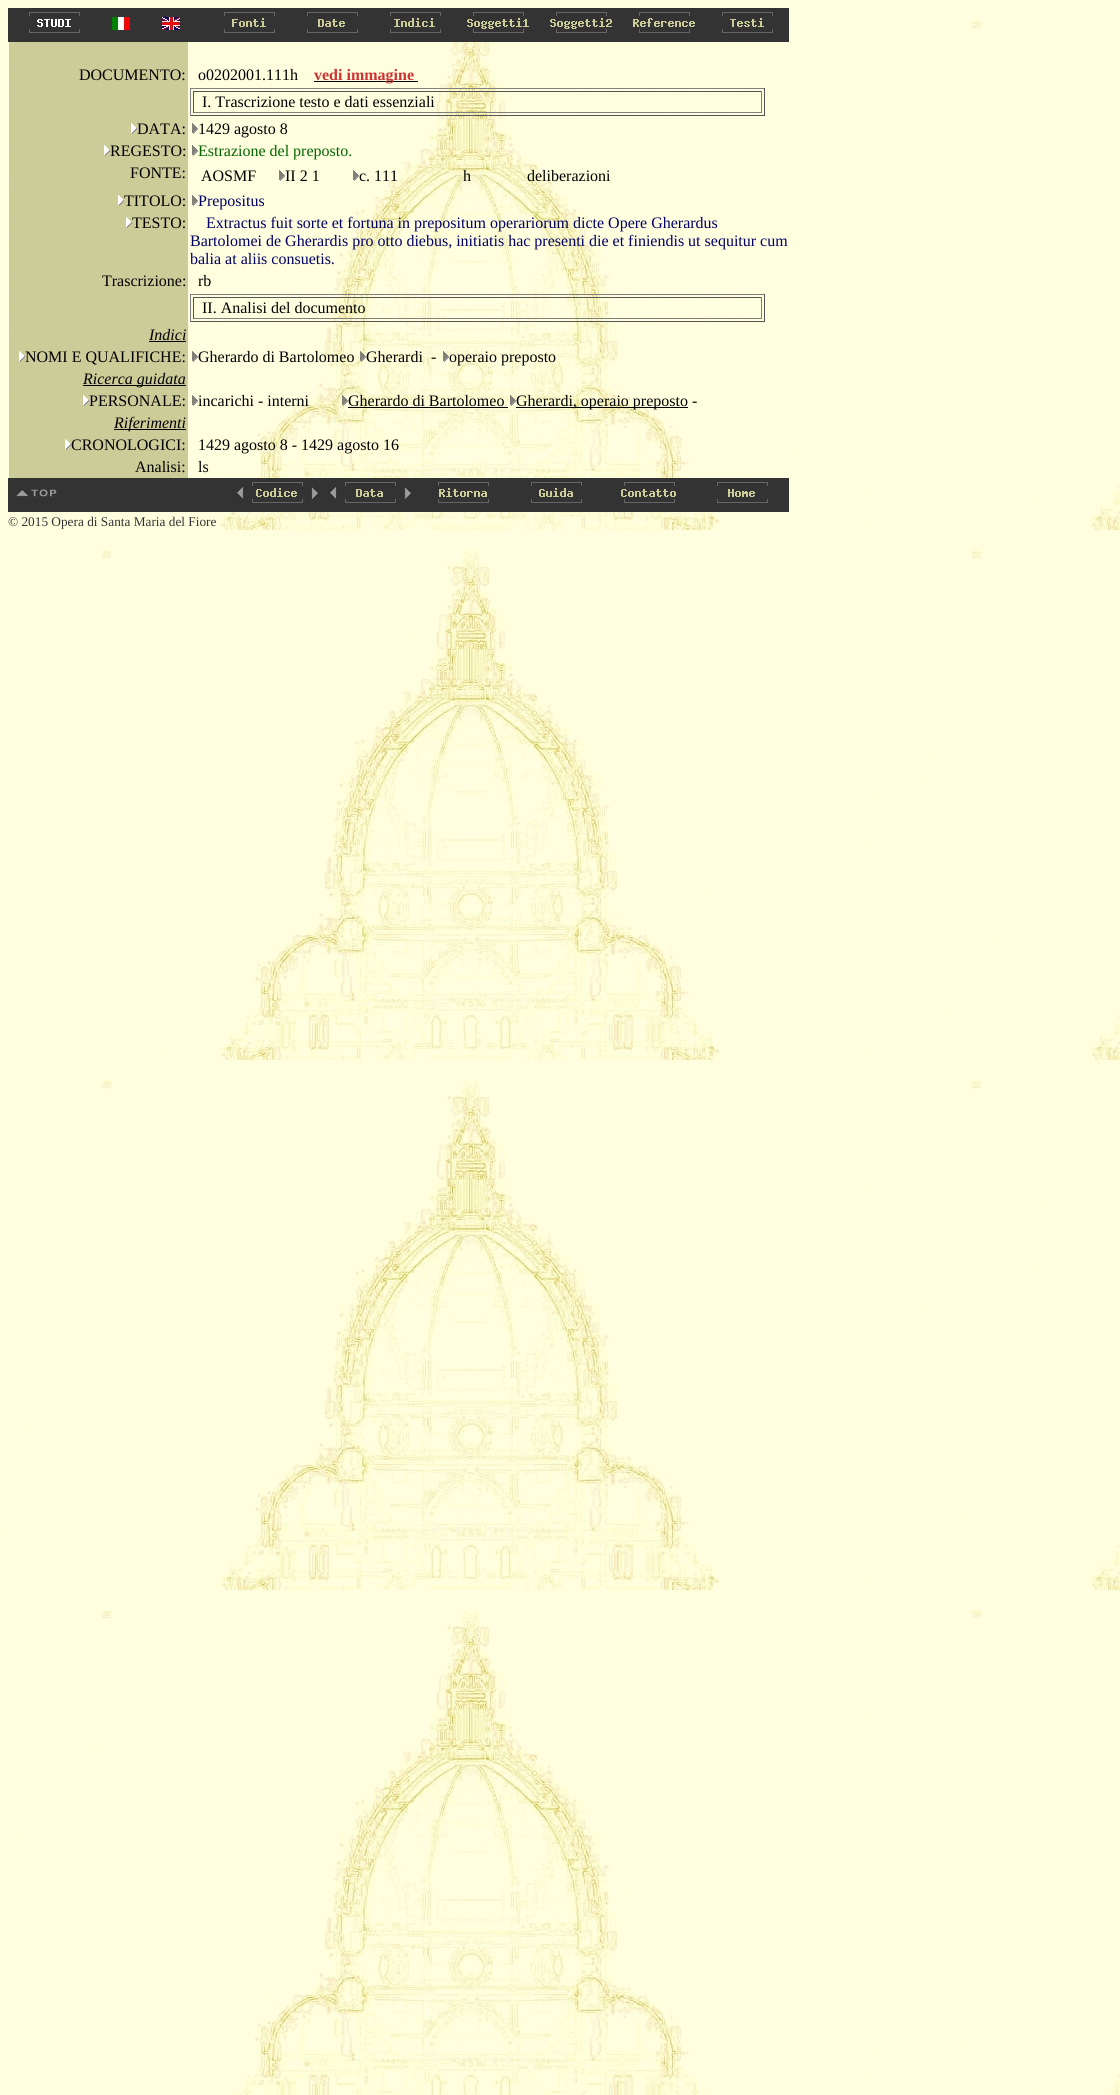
import math
import cairo

surface = cairo.ImageSurface(cairo.FORMAT_RGB24, 1120, 2095)
c = cairo.Context(surface)
options = cairo.FontOptions()
options.set_hint_metrics(cairo.HINT_METRICS_OFF)
options.set_hint_style(cairo.HINT_STYLE_NONE)
c.set_font_options(options)
c.set_miter_limit(4)
def C(code):
 c.set_source_rgb(*(v / 255 for v in bytes.fromhex(code[-6:])))
def F(family, size, italic, bold):
 c.select_font_face(family, cairo.FONT_SLANT_ITALIC if italic else cairo.FONT_SLANT_NORMAL, cairo.FONT_WEIGHT_BOLD if bold else cairo.FONT_WEIGHT_NORMAL)
 c.set_font_size(size)
def T(x, y, s):
 c.move_to(x, y)
 c.show_text(s)
def R(x, y, w, h):
 c.rectangle(x, y, w, h)
 c.fill()
def I(path, x, y, w, h):
 c.save()
 c.set_source_surface(cairo.ImageSurface.create_from_png(path), x, y)
 c.rectangle(x, y, w, h)
 c.fill()
 c.restore()
C('ffffff')
c.paint()
I('1.png',0,0,1120,2095)
C('333333')
R(8,8,781,34)
I('2.png',29,12,51,21)
I('3.png',112,17,18,13)
I('4.png',162,17,18,13)
I('5.png',224,12,51,21)
I('6.png',307,12,51,21)
I('7.png',390,12,51,21)
I('8.png',467,12,62,21)
I('9.png',550,12,62,21)
I('10.png',633,12,62,21)
I('11.png',722,12,51,21)
C('cccc99')
R(9,42,179,436)
F('Liberation Serif',16,0,0)
C('000000')
T(79,80,'DOCUMENTO:')
T(198,80,'o0202001.111h')
R(314,81,104,1)
F('Liberation Serif',16,0,1)
C('cc3333')
T(314,80,'vedi immagine')
C('808080')
R(190,88,575,1)
C('555555')
R(764,88,1,28)
R(190,115,575,1)
C('808080')
R(190,88,1,28)
C('555555')
R(193,91,569,1)
C('808080')
R(761,91,1,22)
R(193,112,569,1)
C('555555')
R(193,91,1,22)
F('Liberation Serif',16,0,0)
C('000000')
T(202,107,'I. Trascrizione testo e dati essenziali')
I('12.png',131,123,6,11)
T(137,134,'DATA:')
I('13.png',192,123,6,11)
T(198,134,'1429 agosto 8')
I('12.png',104,145,6,11)
T(110,156,'REGESTO:')
I('14.png',192,145,6,11)
C('006600')
T(198,156,'Estrazione del preposto.')
C('000000')
T(130,178,'FONTE:')
T(201,181,'AOSMF')
I('15.png',279,170,6,11)
T(285,181,'II 2 1')
I('16.png',353,170,6,11)
T(359,181,'c. 111')
T(463,181,'h')
T(527,181,'deliberazioni')
I('12.png',118,195,6,11)
T(124,206,'TITOLO:')
I('17.png',192,195,6,11)
C('000066')
T(198,206,'Prepositus')
I('12.png',126,217,6,11)
C('000000')
T(132,228,'TESTO:')
C('000066')
T(206,228,'Extractus fuit sorte et fortuna in prepositum operariorum dicte Opere Gherardus')
T(190,246,'Bartolomei de Gherardis pro otto diebus, initiatis hac presenti die et finiendis ut sequitur cum')
T(190,264,'balia at aliis consuetis.')
C('000000')
T(102,286,'Trascrizione:')
T(198,286,'rb')
C('808080')
R(190,294,575,1)
C('555555')
R(764,294,1,28)
R(190,321,575,1)
C('808080')
R(190,294,1,28)
C('555555')
R(193,297,569,1)
C('808080')
R(761,297,1,22)
R(193,318,569,1)
C('555555')
R(193,297,1,22)
C('000000')
T(202,313,'II. Analisi del documento')
F('Liberation Serif',16,1,0)
T(149,340,'Indici')
R(149,341,37,1)
I('12.png',19,351,6,11)
F('Liberation Serif',16,0,0)
T(25,362,'NOMI E QUALIFICHE:')
I('18.png',192,351,6,11)
T(198,362,'Gherardo di Bartolomeo')
I('19.png',360,351,6,11)
T(366,362,'Gherardi')
T(431,362,'-')
I('20.png',443,351,6,11)
T(449,362,'operaio preposto')
R(83,385,103,1)
F('Liberation Serif',16,1,0)
T(83,384,'Ricerca guidata')
I('12.png',83,395,6,11)
F('Liberation Serif',16,0,0)
T(89,406,'PERSONALE:')
I('21.png',192,395,6,11)
T(198,406,'incarichi - interni')
I('22.png',342,395,6,11)
T(348,406,'Gherardo di Bartolomeo')
R(348,407,160,1)
I('23.png',510,395,6,11)
R(516,407,172,1)
T(516,406,'Gherardi, operaio preposto -')
R(114,429,72,1)
F('Liberation Serif',16,1,0)
T(114,428,'Riferimenti')
I('12.png',65,439,6,11)
F('Liberation Serif',16,0,0)
T(71,450,'CRONOLOGICI:')
T(198,450,'1429 agosto 8 - 1429 agosto 16')
T(135,472,'Analisi:')
T(198,472,'ls')
C('333333')
R(8,478,781,34)
I('24.png',16,489,41,8)
I('25.png',237,487,7,12)
I('26.png',252,482,51,21)
I('27.png',311,487,7,12)
I('25.png',330,487,7,12)
I('28.png',345,482,51,21)
I('27.png',404,487,7,12)
I('29.png',438,482,51,21)
I('30.png',531,482,51,21)
I('31.png',621,482,55,21)
I('32.png',717,482,51,21)
F('Liberation Serif',13.3,0,0)
T(8,526,'© 2015 Opera di Santa Maria del Fiore')
surface.write_to_png('o.png')
